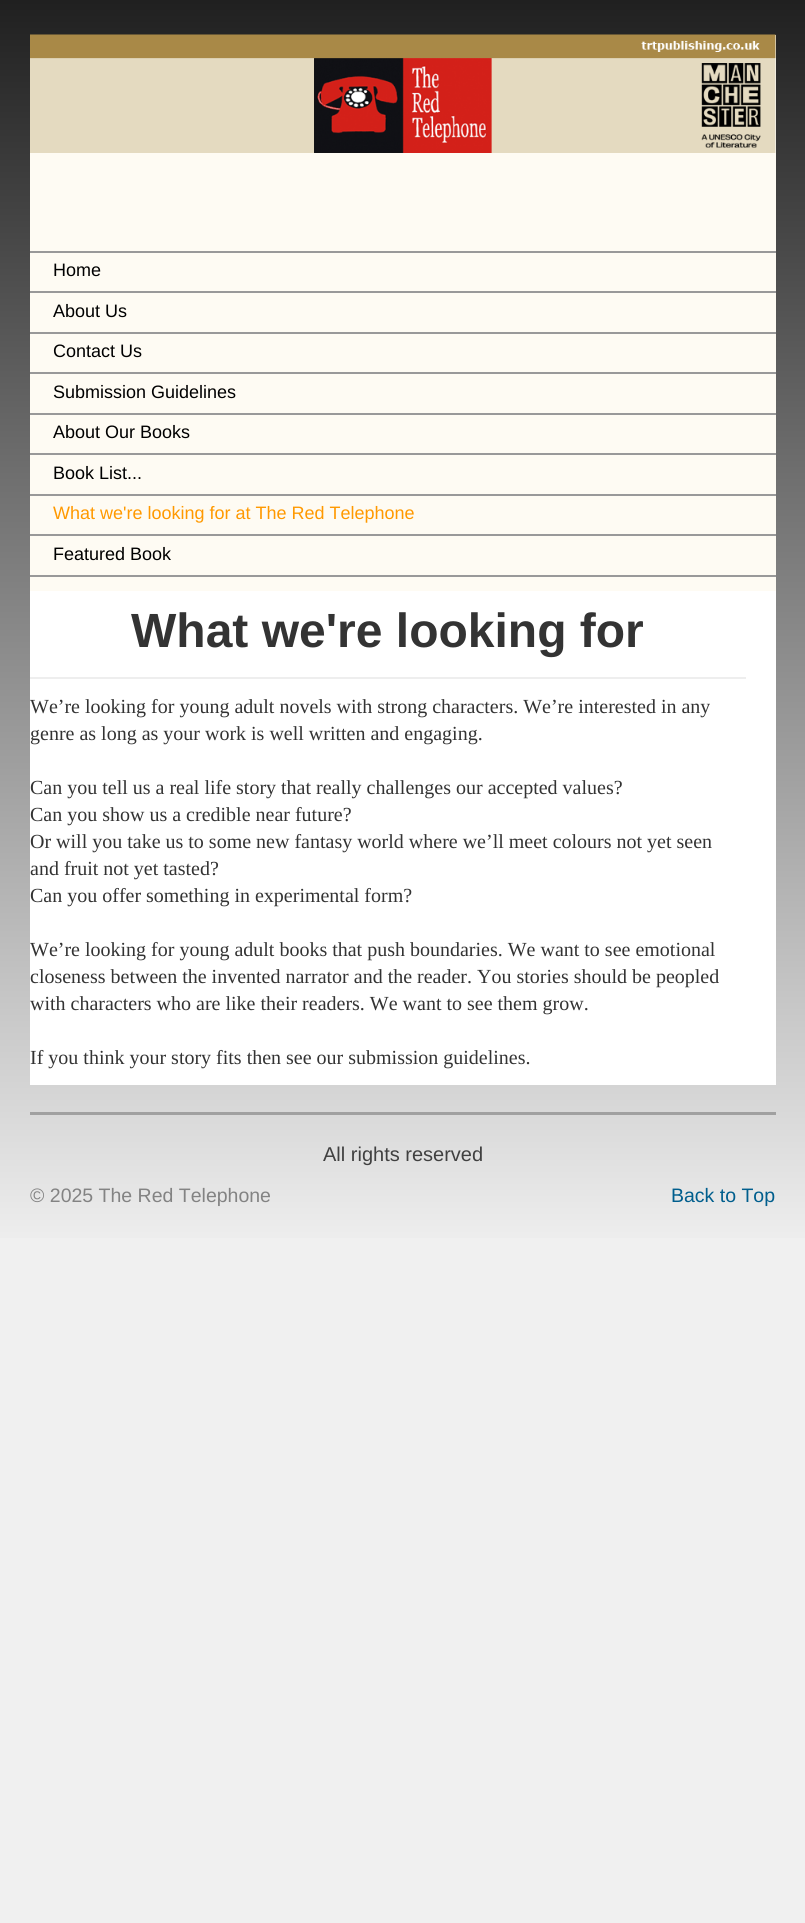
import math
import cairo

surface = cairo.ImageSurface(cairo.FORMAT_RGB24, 805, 1923)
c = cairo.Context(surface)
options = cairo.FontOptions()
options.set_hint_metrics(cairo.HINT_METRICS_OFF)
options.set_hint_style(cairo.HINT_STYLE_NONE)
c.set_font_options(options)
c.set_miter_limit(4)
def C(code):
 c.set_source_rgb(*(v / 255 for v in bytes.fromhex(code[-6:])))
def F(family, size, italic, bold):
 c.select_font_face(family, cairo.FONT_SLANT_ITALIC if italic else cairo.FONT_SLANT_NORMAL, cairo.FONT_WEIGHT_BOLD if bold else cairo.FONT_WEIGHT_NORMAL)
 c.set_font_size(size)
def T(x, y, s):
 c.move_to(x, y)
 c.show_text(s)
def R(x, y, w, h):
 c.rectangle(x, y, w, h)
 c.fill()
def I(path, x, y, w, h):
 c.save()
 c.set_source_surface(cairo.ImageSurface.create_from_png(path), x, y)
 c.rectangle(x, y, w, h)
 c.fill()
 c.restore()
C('f0f0f0')
c.paint()
gradient = cairo.LinearGradient(403,0,403,1253)
gradient.add_color_stop_rgba(0,0.125,0.125,0.125,1)
gradient.add_color_stop_rgba(1,0.941,0.941,0.941,1)
c.set_source(gradient)
R(0,0,805,1238)
C('ffffff')
R(30,35,746,1050)
I('1.png',30,34,746,119)
C('fefbf3')
R(30,153,746,438)
C('999999')
R(30,575,746,2)
R(30,251,746,2)
F('Liberation Sans',18,0,0)
C('000000')
T(53,276,'Home')
C('999999')
R(30,291,746,2)
C('000000')
T(53,317,'About Us')
C('999999')
R(30,332,746,2)
C('000000')
T(53,357,'Contact Us')
C('999999')
R(30,372,746,2)
C('000000')
T(53,398,'Submission Guidelines')
C('999999')
R(30,413,746,2)
C('000000')
T(53,438,'About Our Books')
C('999999')
R(30,453,746,2)
C('000000')
T(53,479,'Book List...')
C('999999')
R(30,494,746,2)
C('ff9900')
T(53,519,'What we\'re looking for at The Red Telephone')
C('999999')
R(30,534,746,2)
C('000000')
T(53,560,'Featured Book')
C('eeeeee')
R(30,677,716,2)
F('Liberation Sans',48,0,1)
C('333333')
T(131,647,'What we\'re looking for')
F('Liberation Serif',20,0,0)
T(30,713,'We’re looking for young adult novels with strong characters. We’re interested in any')
T(30,740,'genre as long as your work is well written and engaging.')
T(30,794,'Can you tell us a real life story that really challenges our accepted values?')
T(30,821,'Can you show us a credible near future?')
T(30,848,'Or will you take us to some new fantasy world where we’ll meet colours not yet seen')
T(30,875,'and fruit not yet tasted?')
T(30,902,'Can you offer something in experimental form?')
T(30,956,'We’re looking for young adult books that push boundaries. We want to see emotional')
T(30,983,'closeness between the invented narrator and the reader. You stories should be peopled')
T(30,1010,'with characters who are like their readers. We want to see them grow.')
T(30,1064,'If you think your story fits then see our submission guidelines.')
C('a0a0a0')
R(30,1112,746,3)
F('Liberation Sans',20,0,0)
C('404040')
T(323,1161,'All rights reserved')
F('Liberation Sans',19.5,0,0)
C('838383')
T(30,1202,'© 2025 The Red Telephone')
C('005e8d')
T(671,1202,'Back to Top')
surface.write_to_png('o.png')
